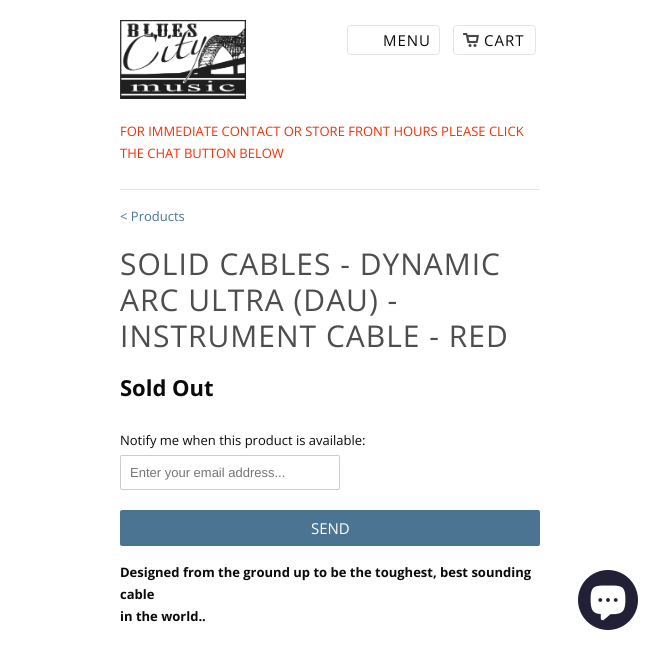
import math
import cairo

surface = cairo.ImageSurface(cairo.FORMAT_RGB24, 660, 651)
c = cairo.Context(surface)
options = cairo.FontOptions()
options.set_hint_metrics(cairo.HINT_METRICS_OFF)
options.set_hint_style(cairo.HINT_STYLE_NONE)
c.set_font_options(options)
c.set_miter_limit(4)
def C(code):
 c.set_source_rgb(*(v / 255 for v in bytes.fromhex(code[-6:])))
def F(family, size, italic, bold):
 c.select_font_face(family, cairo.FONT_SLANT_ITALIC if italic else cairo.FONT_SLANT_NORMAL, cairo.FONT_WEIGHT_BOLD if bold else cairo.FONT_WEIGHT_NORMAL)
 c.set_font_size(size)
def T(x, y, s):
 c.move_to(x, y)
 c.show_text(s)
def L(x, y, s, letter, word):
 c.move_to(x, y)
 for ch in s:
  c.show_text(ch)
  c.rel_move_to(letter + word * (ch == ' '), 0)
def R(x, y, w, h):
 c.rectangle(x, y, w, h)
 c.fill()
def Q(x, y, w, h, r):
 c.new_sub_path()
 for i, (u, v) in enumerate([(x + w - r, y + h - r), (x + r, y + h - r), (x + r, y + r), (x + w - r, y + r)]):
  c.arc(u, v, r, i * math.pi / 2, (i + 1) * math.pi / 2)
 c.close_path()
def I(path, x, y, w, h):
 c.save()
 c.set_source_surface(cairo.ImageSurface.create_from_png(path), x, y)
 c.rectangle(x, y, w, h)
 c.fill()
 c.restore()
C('ffffff')
c.paint()
C('e4e4e4')
R(120,189,420,1)
I('1.png',120,20,126,79)
Q(347.5,25.5,92,29,3.5)
c.set_line_width(1)
c.stroke()
F('Open Sans',15,0,0)
C('0a0a0a')
L(383,46,'MENU',1,0)
I('2.png',463,33,16,14)
Q(453.5,25.5,82,29,3.5)
C('e4e4e4')
c.stroke()
C('0a0a0a')
L(484,46,'CART',1,0)
F('Open Sans',13,0,0)
C('ff2a00')
T(120,136,'FOR IMMEDIATE CONTACT OR STORE FRONT HOURS PLEASE CLICK')
T(120,158,'THE CHAT BUTTON BELOW')
C('4a7491')
T(120,221,'< Products')
F('Open Sans',30,0,0)
C('4d4d4d')
L(120,275,'SOLID CABLES - DYNAMIC',1,0)
L(120,311,'ARC ULTRA (DAU) -',1,0)
L(120,347,'INSTRUMENT CABLE - RED',1,0)
F('Open Sans',22,0,1)
C('0a0a0a')
T(120,396,'Sold Out')
F('Open Sans',13,0,0)
T(120,445,'Notify me when this product is available:')
Q(120.5,455.5,219,34,1.5)
C('cccccc')
c.stroke()
F('Liberation Sans',13,0,0)
C('757575')
T(130,477,'Enter your email address...')
C('4a7491')
Q(120,510,420,36,2)
c.fill()
F('Open Sans',15,0,0)
C('ffffff')
T(311,534,'SEND')
F('Open Sans',13,0,1)
C('0a0a0a')
T(120,577,'Designed from the ground up to be the toughest, best sounding')
T(120,599,'cable')
T(120,621,'in the world..')
C('212036')
c.new_path()
c.arc(608,600,30,0,2 * math.pi)
c.fill()
I('3.png',590,585,36,36)
surface.write_to_png('o.png')
